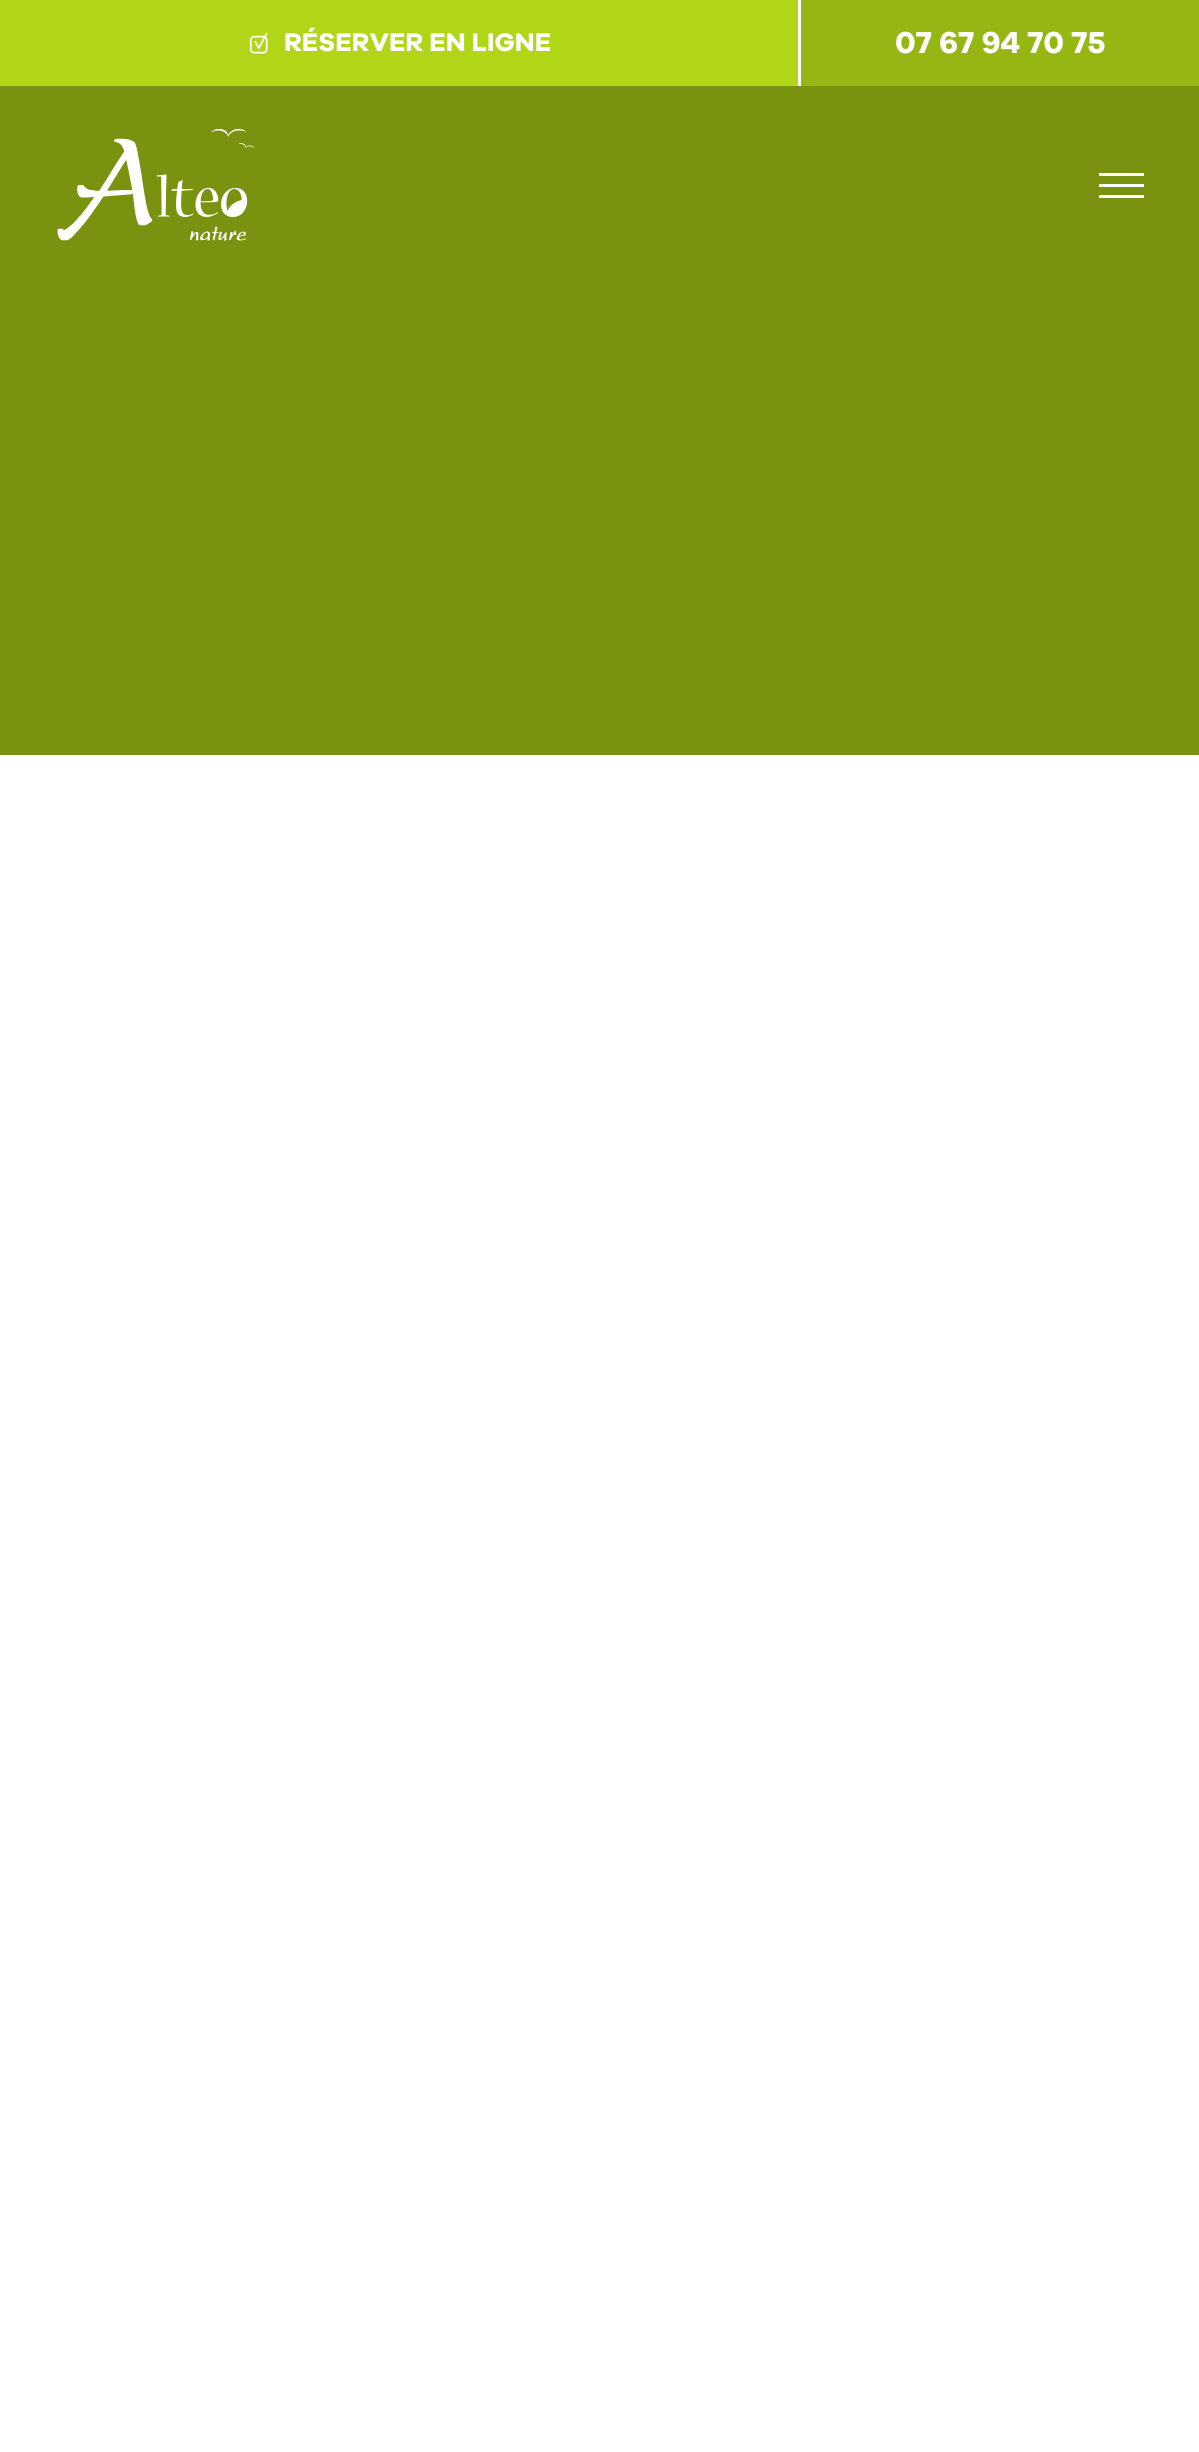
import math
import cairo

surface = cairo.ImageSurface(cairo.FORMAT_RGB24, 1199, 2452)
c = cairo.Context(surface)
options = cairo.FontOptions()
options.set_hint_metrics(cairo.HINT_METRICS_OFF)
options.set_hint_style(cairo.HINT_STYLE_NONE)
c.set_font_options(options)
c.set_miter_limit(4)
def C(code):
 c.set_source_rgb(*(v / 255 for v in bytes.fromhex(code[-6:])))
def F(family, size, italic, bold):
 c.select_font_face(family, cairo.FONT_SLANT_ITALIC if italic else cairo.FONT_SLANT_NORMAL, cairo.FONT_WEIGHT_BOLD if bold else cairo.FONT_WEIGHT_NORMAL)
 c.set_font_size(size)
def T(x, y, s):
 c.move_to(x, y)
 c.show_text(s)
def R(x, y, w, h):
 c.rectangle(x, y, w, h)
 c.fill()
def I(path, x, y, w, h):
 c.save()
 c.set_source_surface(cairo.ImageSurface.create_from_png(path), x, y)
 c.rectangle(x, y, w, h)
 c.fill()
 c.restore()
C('ffffff')
c.paint()
C('96b614')
R(801,0,398,86)
C('b1d618')
R(0,0,798,86)
I('1.png',249,33,19,21)
F('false',26.25,0,1)
C('ffffff')
T(284,51,'RÉSERVER EN LIGNE')
F('false',31.25,0,1)
T(895,53,'07 67 94 70 75')
C('799210')
R(0,86,1199,669)
I('2.png',57,129,198,112)
C('ffffff')
R(1099,173,45,3)
R(1099,184,45,3)
R(1099,195,45,3)
surface.write_to_png('o.png')
